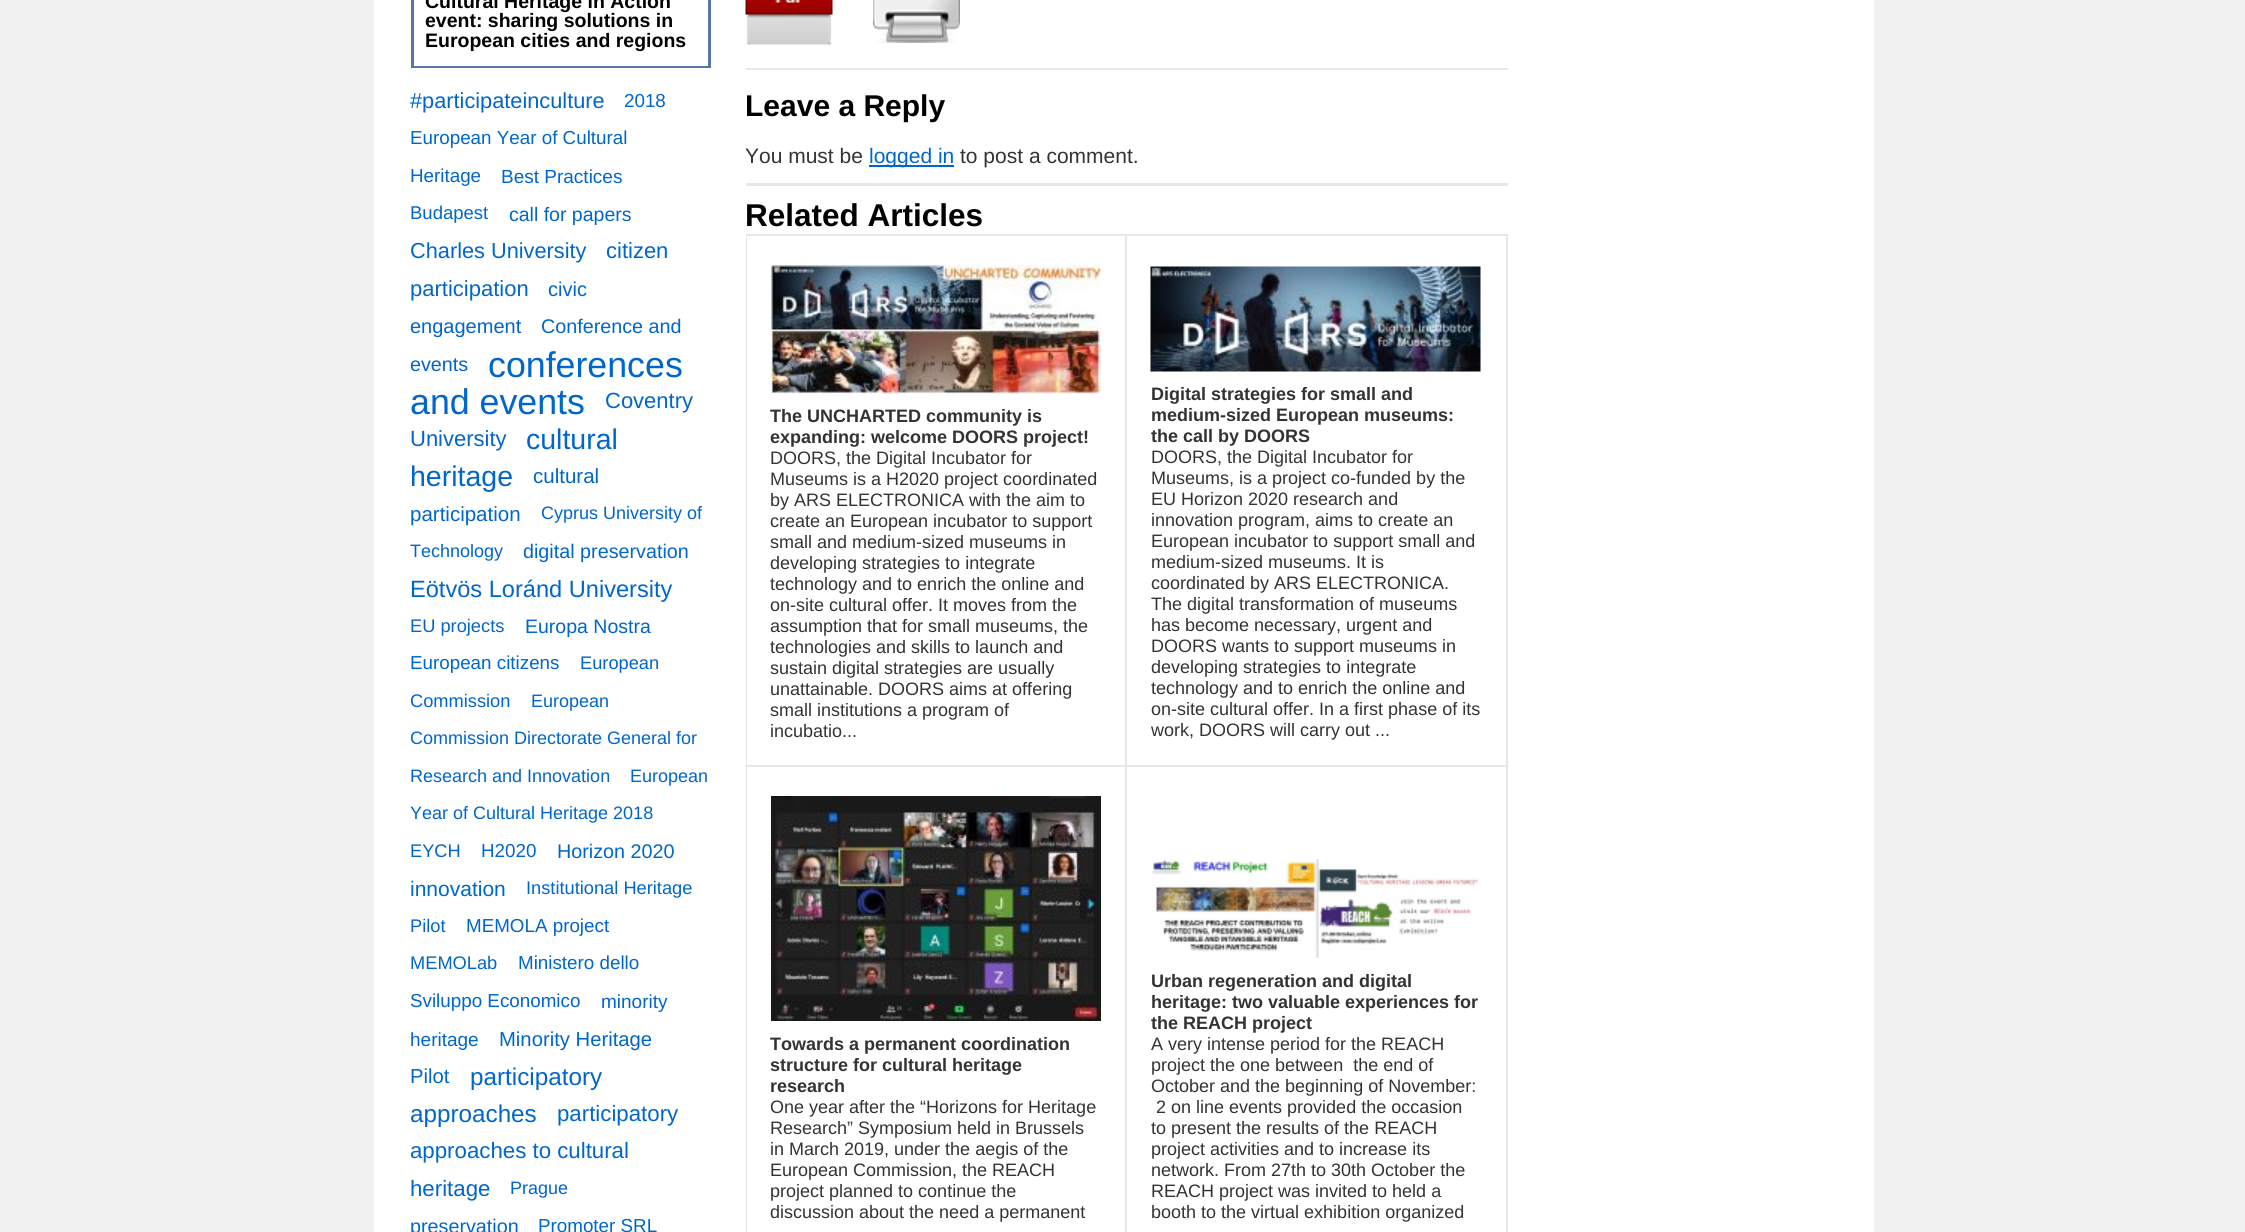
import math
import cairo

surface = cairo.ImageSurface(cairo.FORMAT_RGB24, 2245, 1232)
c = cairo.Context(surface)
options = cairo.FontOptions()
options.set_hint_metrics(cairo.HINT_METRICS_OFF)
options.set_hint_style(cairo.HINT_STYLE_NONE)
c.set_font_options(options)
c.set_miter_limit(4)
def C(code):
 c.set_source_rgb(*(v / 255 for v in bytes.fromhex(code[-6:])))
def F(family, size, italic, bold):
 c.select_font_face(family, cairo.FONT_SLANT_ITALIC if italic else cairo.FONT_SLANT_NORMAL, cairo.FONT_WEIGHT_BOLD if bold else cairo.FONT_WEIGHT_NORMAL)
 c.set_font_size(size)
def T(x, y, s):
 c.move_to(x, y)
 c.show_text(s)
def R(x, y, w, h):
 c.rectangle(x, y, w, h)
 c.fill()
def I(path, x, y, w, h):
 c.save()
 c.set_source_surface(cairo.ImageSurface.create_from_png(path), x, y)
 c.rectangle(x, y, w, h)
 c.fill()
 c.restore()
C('f1f1f1')
c.paint()
C('ffffff')
R(374,0,1500,1232)
C('5378a4')
R(708,0,3,68)
R(411,66,300,2)
R(411,0,3,68)
F('Liberation Sans',19.5,0,1)
C('000000')
T(425,8,'Cultural Heritage in Action')
T(425,27,'event: sharing solutions in')
T(425,47,'European cities and regions')
F('Liberation Sans',21.75,0,0)
C('0066cc')
T(410,108,'#participateinculture')
F('Liberation Sans',18.8,0,0)
T(624,107,'2018')
T(410,144,'European Year of Cultural')
T(410,182,'Heritage')
F('Liberation Sans',19,0,0)
T(501,183,'Best Practices')
F('Liberation Sans',18.5,0,0)
T(410,219,'Budapest')
F('Liberation Sans',19.5,0,0)
T(509,221,'call for papers')
F('Liberation Sans',21.75,0,0)
T(410,258,'Charles University')
F('Liberation Sans',22,0,0)
T(606,258,'citizen')
T(410,296,'participation')
F('Liberation Sans',20,0,0)
T(548,296,'civic')
T(410,333,'engagement')
F('Liberation Sans',19.75,0,0)
T(541,333,'Conference and')
T(410,371,'events')
F('Liberation Sans',35.75,0,0)
T(488,377,'conferences')
T(410,414,'and events')
F('Liberation Sans',22,0,0)
T(605,408,'Coventry')
T(410,446,'University')
F('Liberation Sans',28.5,0,0)
T(526,449,'cultural')
T(410,486,'heritage')
F('Liberation Sans',20.5,0,0)
T(533,483,'cultural')
T(410,521,'participation')
F('Liberation Sans',18,0,0)
T(541,519,'Cyprus University of')
T(410,557,'Technology')
F('Liberation Sans',19.75,0,0)
T(523,558,'digital preservation')
F('Liberation Sans',23.6,0,0)
T(410,597,'Eötvös Loránd University')
F('Liberation Sans',18.25,0,0)
T(410,632,'EU projects')
F('Liberation Sans',19.5,0,0)
T(525,633,'Europa Nostra')
F('Liberation Sans',18.8,0,0)
T(410,669,'European citizens')
F('Liberation Sans',18.25,0,0)
T(580,669,'European')
T(410,707,'Commission')
F('Liberation Sans',18,0,0)
T(531,707,'European')
T(410,744,'Commission Directorate General for')
T(410,782,'Research and Innovation')
T(630,782,'European')
T(410,819,'Year of Cultural Heritage 2018')
F('Liberation Sans',18.25,0,0)
T(410,857,'EYCH')
F('Liberation Sans',18.8,0,0)
T(481,857,'H2020')
F('Liberation Sans',19.75,0,0)
T(557,858,'Horizon 2020')
F('Liberation Sans',21,0,0)
T(410,896,'innovation')
F('Liberation Sans',18.25,0,0)
T(526,894,'Institutional Heritage')
T(410,932,'Pilot')
F('Liberation Sans',18.8,0,0)
T(466,932,'MEMOLA project')
F('Liberation Sans',18.25,0,0)
T(410,969,'MEMOLab')
F('Liberation Sans',18.8,0,0)
T(518,969,'Ministero dello')
T(410,1007,'Sviluppo Economico')
F('Liberation Sans',19,0,0)
T(601,1008,'minority')
T(410,1046,'heritage')
F('Liberation Sans',20.25,0,0)
T(499,1046,'Minority Heritage')
T(410,1083,'Pilot')
F('Liberation Sans',24.25,0,0)
T(470,1085,'participatory')
T(410,1122,'approaches')
F('Liberation Sans',22.25,0,0)
T(557,1121,'participatory')
T(410,1158,'approaches to cultural')
T(410,1196,'heritage')
F('Liberation Sans',18,0,0)
T(510,1194,'Prague')
F('Liberation Sans',19.75,0,0)
T(410,1233,'preservation')
F('Liberation Sans',18.8,0,0)
T(538,1232,'Promoter SRL')
I('1.png',745,0,88,45)
I('2.png',873,0,87,43)
C('e7e7e7')
R(746,68,762,2)
F('Liberation Sans',30,0,1)
C('000000')
T(745,116,'Leave a Reply')
F('Liberation Sans',21,0,0)
C('333333')
T(745,163,'You must be')
C('0066cc')
R(869,165,85,2)
T(869,163,'logged in')
C('333333')
T(960,163,'to post a comment.')
C('e7e7e7')
R(746,183,762,3)
F('Liberation Sans',31.5,0,1)
C('000000')
T(745,226,'Related Articles')
C('e7e7e7')
R(746,234,762,2)
R(1506,234,2,998)
R(746,234,2,998)
C('ffffff')
R(747,236,1,529)
I('3.png',771,265,330,129)
F('Liberation Sans',18,0,1)
C('333333')
T(770,422,'The UNCHARTED community is')
T(770,443,'expanding: welcome DOORS project!')
F('Liberation Sans',18,0,0)
T(770,464,'DOORS, the Digital Incubator for')
T(770,485,'Museums is a H2020 project coordinated')
T(770,506,'by ARS ELECTRONICA with the aim to')
T(770,527,'create an European incubator to support')
T(770,548,'small and medium-sized museums in')
T(770,569,'developing strategies to integrate')
T(770,590,'technology and to enrich the online and')
T(770,611,'on-site cultural offer. It moves from the')
T(770,632,'assumption that for small museums, the')
T(770,653,'technologies and skills to launch and')
T(770,674,'sustain digital strategies are usually')
T(770,695,'unattainable. DOORS aims at offering')
T(770,716,'small institutions a program of')
T(770,737,'incubatio...')
C('e7e7e7')
R(1125,765,383,2)
R(1125,765,2,467)
R(746,765,381,2)
R(1125,234,2,533)
I('4.png',1150,266,331,106)
F('Liberation Sans',18,0,1)
C('333333')
T(1151,400,'Digital strategies for small and')
T(1151,421,'medium-sized European museums:')
T(1151,442,'the call by DOORS')
F('Liberation Sans',18,0,0)
T(1151,463,'DOORS, the Digital Incubator for')
T(1151,484,'Museums, is a project co-funded by the')
T(1151,505,'EU Horizon 2020 research and')
T(1151,526,'innovation program, aims to create an')
T(1151,547,'European incubator to support small and')
T(1151,568,'medium-sized museums. It is')
T(1151,589,'coordinated by ARS ELECTRONICA.')
T(1151,610,'The digital transformation of museums')
T(1151,631,'has become necessary, urgent and')
T(1151,652,'DOORS wants to support museums in')
T(1151,673,'developing strategies to integrate')
T(1151,694,'technology and to enrich the online and')
T(1151,715,'on-site cultural offer. In a first phase of its')
T(1151,736,'work, DOORS will carry out ...')
C('ffffff')
R(747,767,1,465)
I('5.png',771,796,330,225)
F('Liberation Sans',18,0,1)
C('333333')
T(770,1050,'Towards a permanent coordination')
T(770,1071,'structure for cultural heritage')
T(770,1092,'research')
F('Liberation Sans',18,0,0)
T(770,1113,'One year after the “Horizons for Heritage')
T(770,1134,'Research” Symposium held in Brussels')
T(770,1155,'in March 2019, under the aegis of the')
T(770,1176,'European Commission, the REACH')
T(770,1197,'project planned to continue the')
T(770,1218,'discussion about the need a permanent')
I('6.png',1152,859,327,99)
F('Liberation Sans',18,0,1)
T(1151,987,'Urban regeneration and digital')
T(1151,1008,'heritage: two valuable experiences for')
T(1151,1029,'the REACH project')
F('Liberation Sans',18,0,0)
T(1151,1050,'A very intense period for the REACH')
T(1151,1071,'project the one between  the end of')
T(1151,1092,'October and the beginning of November:')
T(1156,1113,'2 on line events provided the occasion')
T(1151,1134,'to present the results of the REACH')
T(1151,1155,'project activities and to increase its')
T(1151,1176,'network. From 27th to 30th October the')
T(1151,1197,'REACH project was invited to held a')
T(1151,1218,'booth to the virtual exhibition organized')
surface.write_to_png('o.png')
